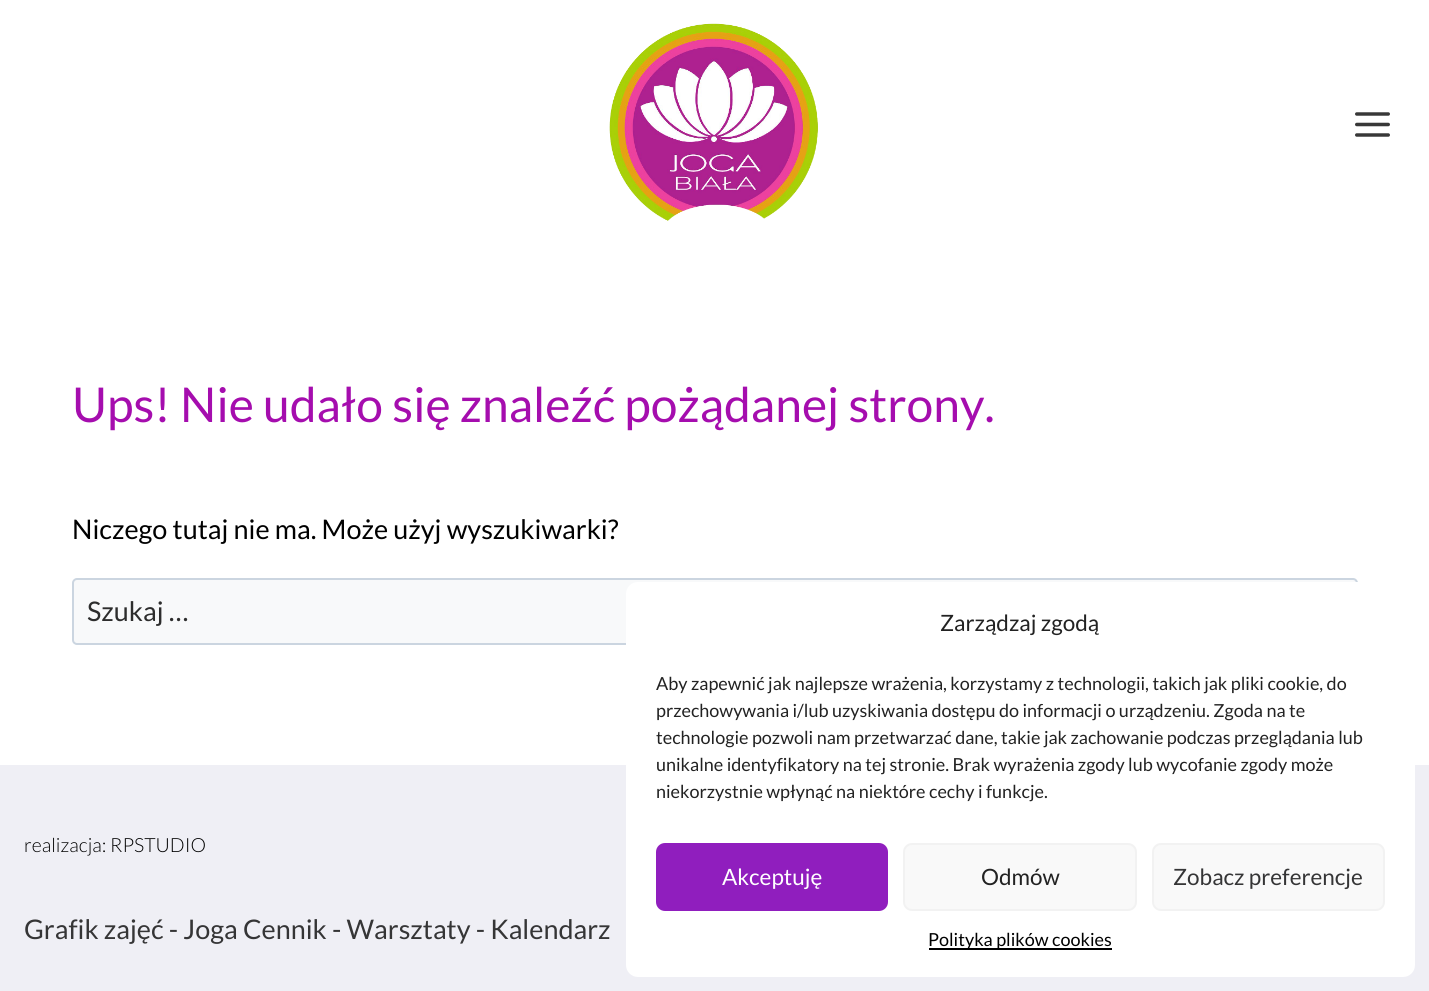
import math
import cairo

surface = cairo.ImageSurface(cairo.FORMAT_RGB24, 1429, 991)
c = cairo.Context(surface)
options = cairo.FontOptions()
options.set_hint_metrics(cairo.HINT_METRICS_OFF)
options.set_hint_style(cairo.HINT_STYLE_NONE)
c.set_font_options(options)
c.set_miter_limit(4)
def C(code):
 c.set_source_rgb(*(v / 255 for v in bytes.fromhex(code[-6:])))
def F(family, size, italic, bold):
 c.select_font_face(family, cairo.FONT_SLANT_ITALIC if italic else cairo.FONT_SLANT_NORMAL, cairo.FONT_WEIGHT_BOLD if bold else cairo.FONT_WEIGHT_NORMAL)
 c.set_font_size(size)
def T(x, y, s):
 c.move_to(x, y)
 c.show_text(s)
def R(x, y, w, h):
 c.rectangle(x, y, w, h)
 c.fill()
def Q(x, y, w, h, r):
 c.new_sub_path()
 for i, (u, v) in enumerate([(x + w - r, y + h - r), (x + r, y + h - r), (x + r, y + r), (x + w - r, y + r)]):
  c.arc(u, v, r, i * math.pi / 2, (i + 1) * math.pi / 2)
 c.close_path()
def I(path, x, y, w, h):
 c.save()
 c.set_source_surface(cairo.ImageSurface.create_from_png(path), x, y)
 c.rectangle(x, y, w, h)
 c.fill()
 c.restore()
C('ffffff')
c.paint()
I('1.png',609,23,209,198)
I('2.png',1355,112,35,25)
F('Lato',48,0,0)
C('a50dae')
T(72,422,'Ups! Nie udało się znaleźć pożądanej strony.')
F('Lato',27,0,0)
C('000000')
T(72,539,'Niczego tutaj nie ma. Może użyj wyszukiwarki?')
C('f8f9fa')
Q(73,579,1284,65,4)
c.fill_preserve()
C('cbd5e0')
c.stroke()
C('2d2d2d')
T(87,621,'Szukaj …')
C('efeff5')
R(0,765,1429,226)
F('Lato Light',19.5,0,0)
C('000000')
T(24,852,'realizacja: RPSTUDIO')
F('Lato',27,0,0)
C('353536')
T(24,939,'Grafik zajęć - Joga Cennik - Warsztaty - Kalendarz')
C('ffffff')
Q(626,582,789,395,12)
c.fill()
F('Lato',22.5,0,0)
C('222222')
T(940,631,'Zarządzaj zgodą')
F('Lato',18,0,0)
T(656,690,'Aby zapewnić jak najlepsze wrażenia, korzystamy z technologii, takich jak pliki cookie, do')
T(656,717,'przechowywania i/lub uzyskiwania dostępu do informacji o urządzeniu. Zgoda na te')
T(656,744,'technologie pozwoli nam przetwarzać dane, takie jak zachowanie podczas przeglądania lub')
T(656,771,'unikalne identyfikatory na tej stronie. Brak wyrażenia zgody lub wycofanie zgody może')
T(656,798,'niekorzystnie wpłynąć na niektóre cechy i funkcje.')
C('901ebe')
Q(657,844,230,66,8)
c.fill_preserve()
c.stroke()
F('Lato',22.5,0,0)
C('ffffff')
T(722,885,'Akceptuję')
C('f9f9f9')
Q(904,844,232,66,8)
c.fill_preserve()
C('f2f2f2')
c.stroke()
C('222222')
T(981,885,'Odmów')
C('f9f9f9')
Q(1153,844,231,66,8)
c.fill_preserve()
C('f2f2f2')
c.stroke()
C('353536')
T(1173,885,'Zobacz preferencje')
C('000000')
R(929,948,183,2)
F('Lato',18,0,0)
T(928,946,'Polityka plików cookies')
surface.write_to_png('o.png')
